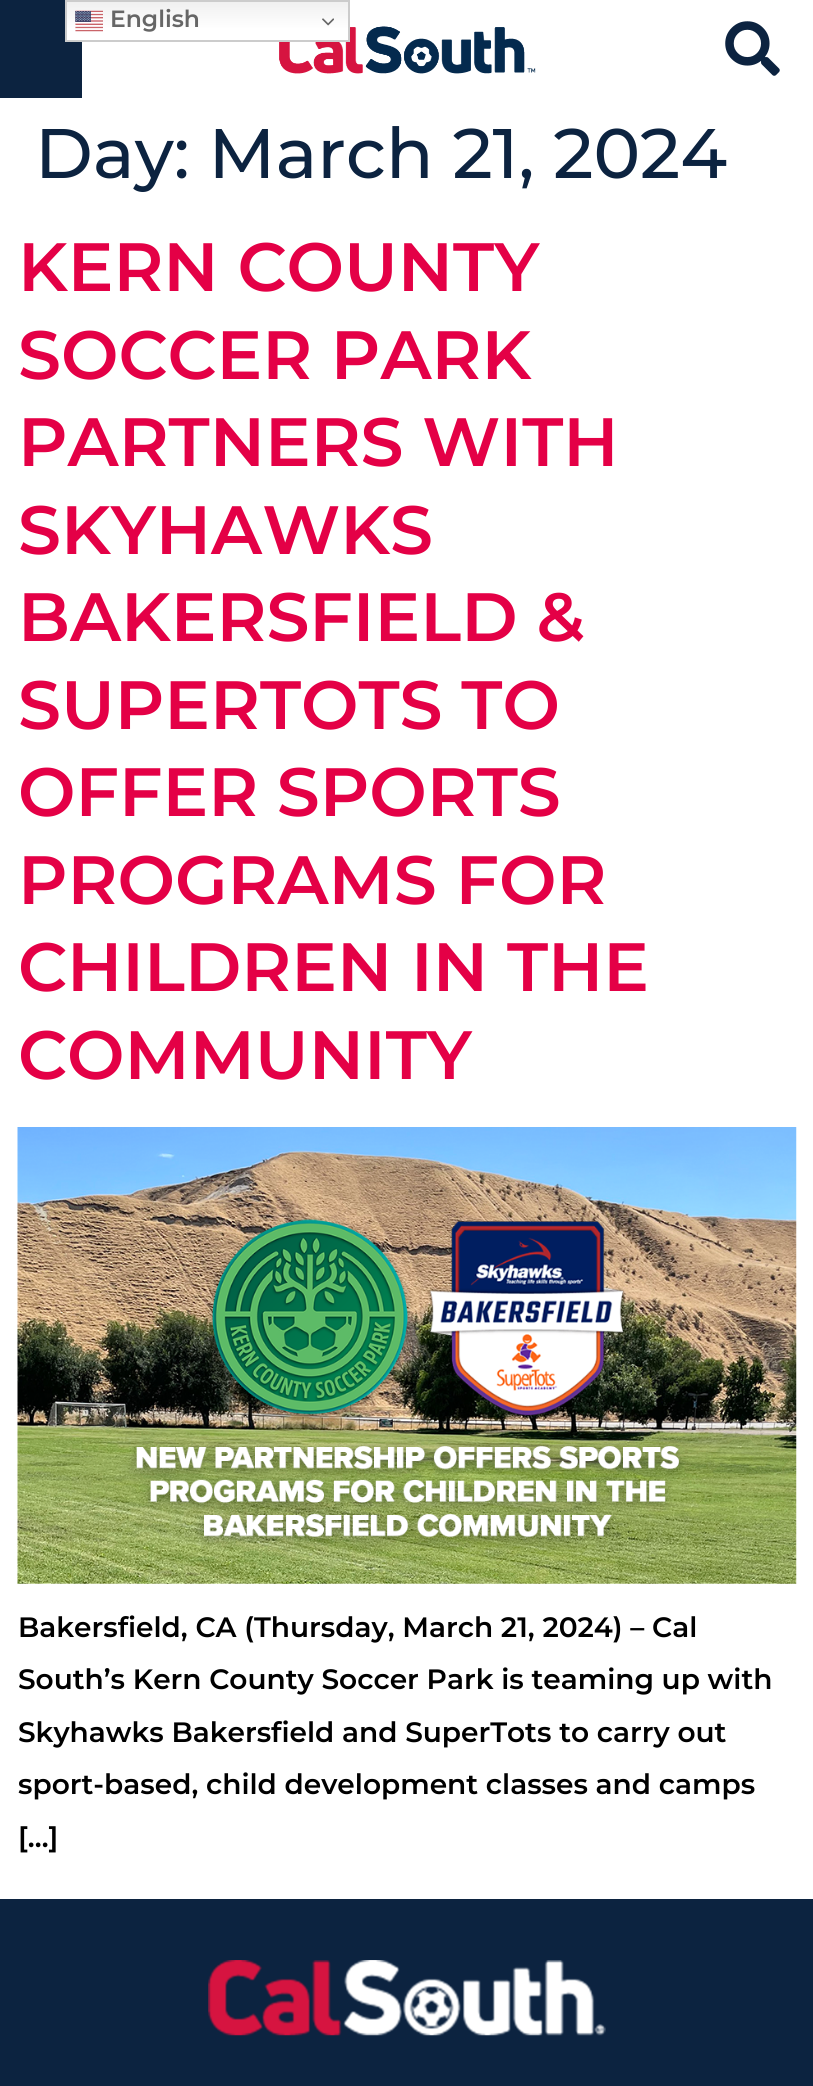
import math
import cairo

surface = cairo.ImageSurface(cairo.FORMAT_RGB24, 813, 2086)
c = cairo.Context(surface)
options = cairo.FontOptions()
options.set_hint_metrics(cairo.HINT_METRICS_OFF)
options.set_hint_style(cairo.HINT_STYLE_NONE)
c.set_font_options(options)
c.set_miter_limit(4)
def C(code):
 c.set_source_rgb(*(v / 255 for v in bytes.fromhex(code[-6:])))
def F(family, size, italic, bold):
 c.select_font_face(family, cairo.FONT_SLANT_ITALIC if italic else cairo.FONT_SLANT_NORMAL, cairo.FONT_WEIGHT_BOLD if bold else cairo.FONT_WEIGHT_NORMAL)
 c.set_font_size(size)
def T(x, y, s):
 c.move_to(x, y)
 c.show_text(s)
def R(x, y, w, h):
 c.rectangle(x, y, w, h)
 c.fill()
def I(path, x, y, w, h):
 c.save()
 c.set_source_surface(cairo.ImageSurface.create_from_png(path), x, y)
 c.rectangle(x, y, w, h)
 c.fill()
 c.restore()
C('ffffff')
c.paint()
C('0c2340')
R(0,0,82,98)
I('1.png',279,26,257,48)
I('2.png',725,21,55,55)
gradient = cairo.LinearGradient(207,0,207,42)
gradient.add_color_stop_rgba(0,0.937,0.937,0.937,1)
gradient.add_color_stop_rgba(.7,1,1,1,1)
c.set_source(gradient)
R(67,2,281,38)
c.rectangle(66,1,283,40)
C('cccccc')
c.stroke()
I('3.png',75,10,28,22)
F('Montserrat SemiBold',23.5,0,0)
C('666666')
T(110,27,'English')
I('4.png',322,18,12,8)
F('Montserrat Medium',70,0,0)
C('0c2340')
T(35,178,'Day: March 21, 2024')
F('Montserrat SemiBold',68.25,0,0)
C('e40046')
T(18,291,'KERN COUNTY')
T(18,379,'SOCCER PARK')
T(18,466,'PARTNERS WITH')
T(18,554,'SKYHAWKS')
T(18,641,'BAKERSFIELD &')
T(18,729,'SUPERTOTS TO')
T(18,816,'OFFER SPORTS')
T(18,904,'PROGRAMS FOR')
T(18,991,'CHILDREN IN THE')
T(18,1079,'COMMUNITY')
I('5.png',17,1127,780,457)
F('Montserrat SemiBold',28,0,0)
C('000000')
T(18,1637,'Bakersfield, CA (Thursday, March 21, 2024) – Cal')
T(18,1689,'South’s Kern County Soccer Park is teaming up with')
T(18,1742,'Skyhawks Bakersfield and SuperTots to carry out')
T(18,1794,'sport-based, child development classes and camps')
T(18,1847,'[…]')
C('0c2340')
R(0,1899,813,187)
I('6.png',208,1960,398,76)
surface.write_to_png('o.png')
